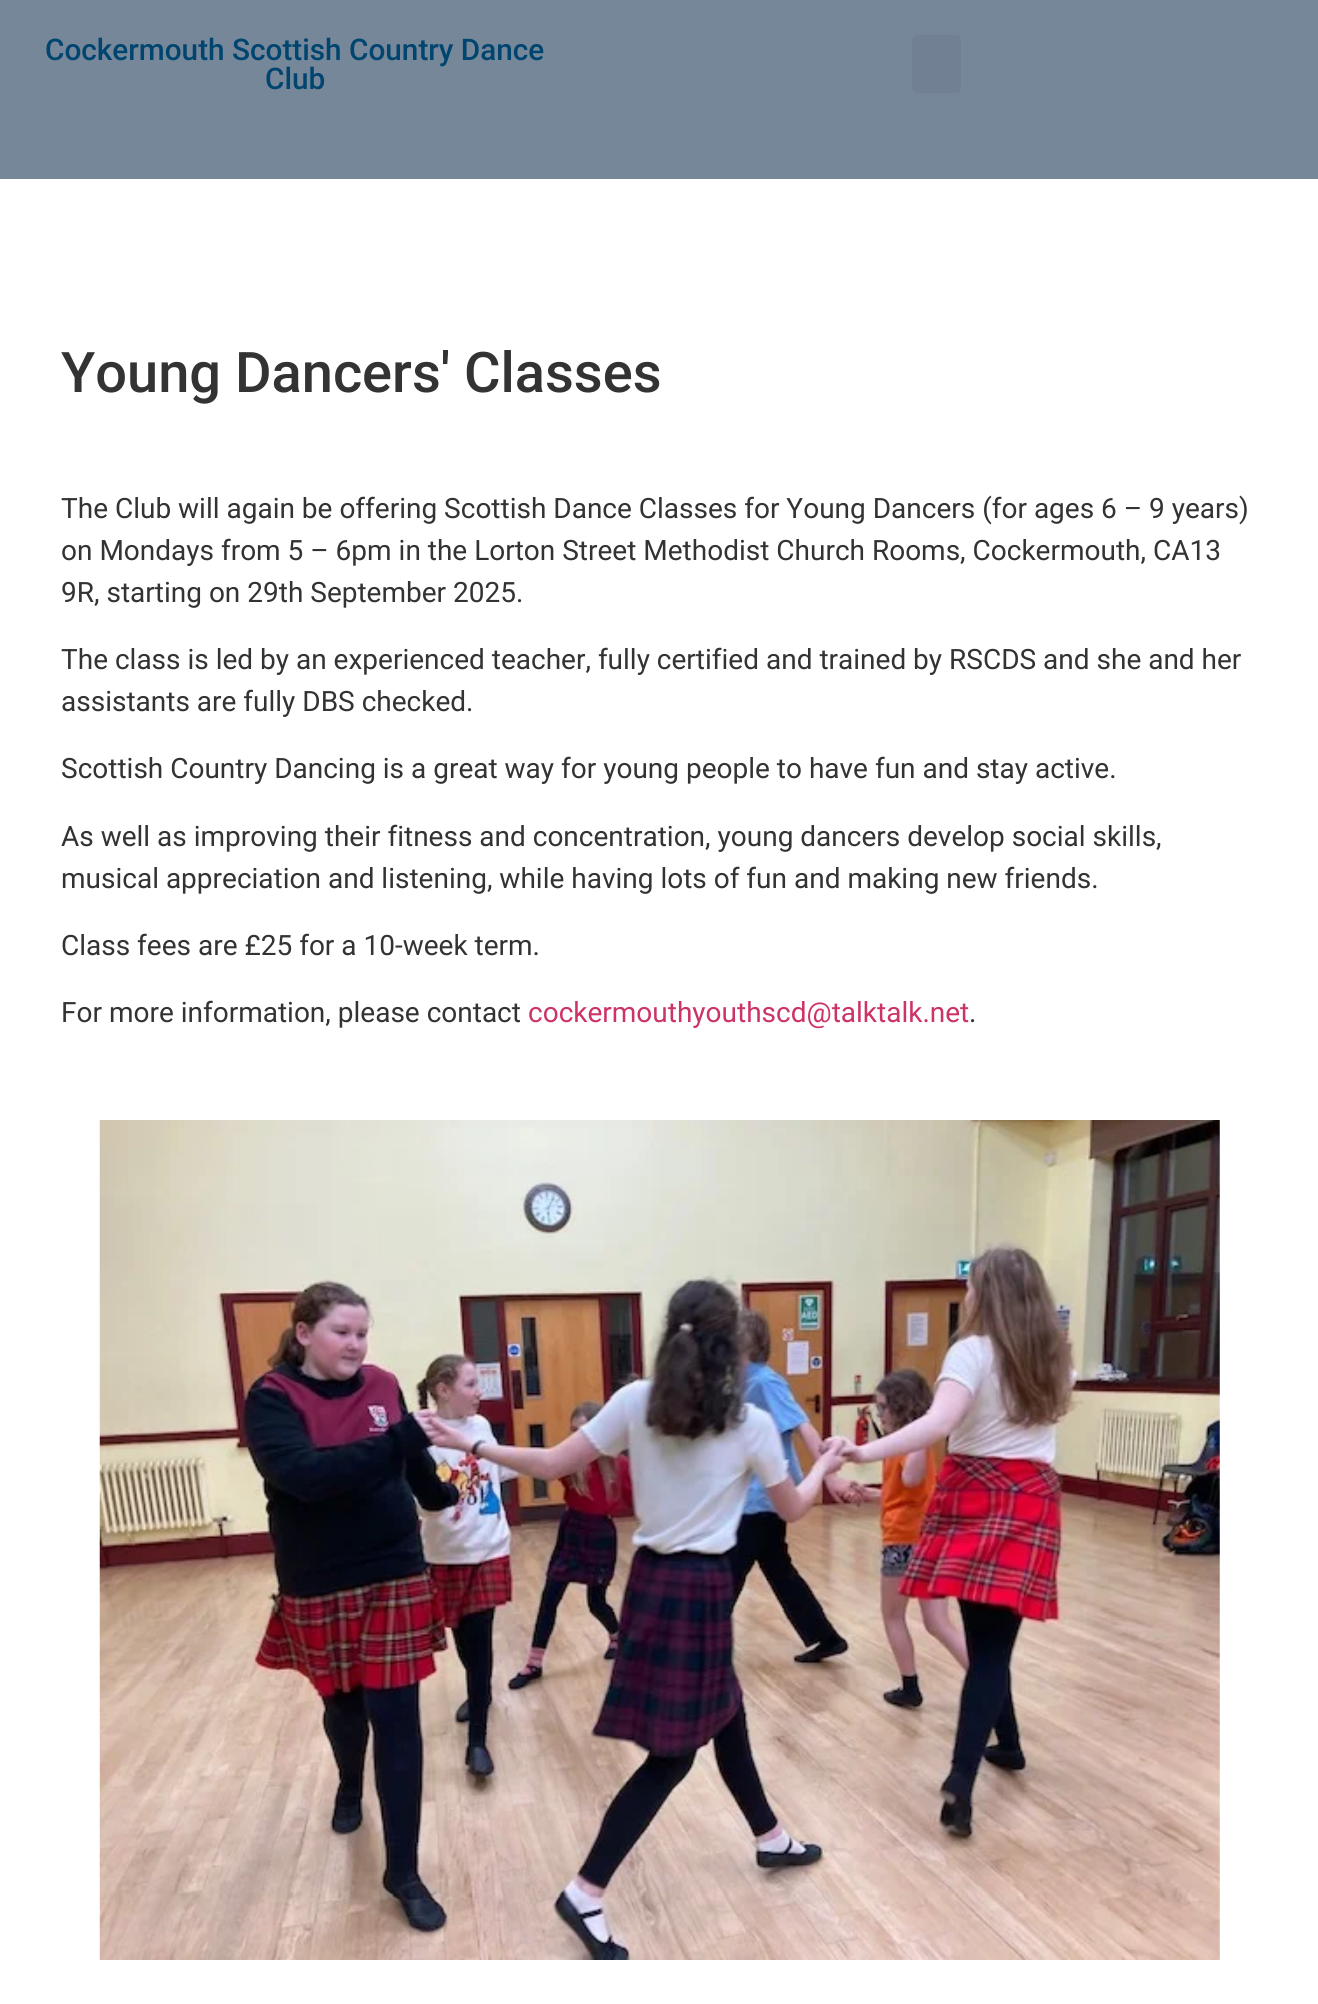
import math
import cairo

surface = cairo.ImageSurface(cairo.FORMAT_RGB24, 1318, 2004)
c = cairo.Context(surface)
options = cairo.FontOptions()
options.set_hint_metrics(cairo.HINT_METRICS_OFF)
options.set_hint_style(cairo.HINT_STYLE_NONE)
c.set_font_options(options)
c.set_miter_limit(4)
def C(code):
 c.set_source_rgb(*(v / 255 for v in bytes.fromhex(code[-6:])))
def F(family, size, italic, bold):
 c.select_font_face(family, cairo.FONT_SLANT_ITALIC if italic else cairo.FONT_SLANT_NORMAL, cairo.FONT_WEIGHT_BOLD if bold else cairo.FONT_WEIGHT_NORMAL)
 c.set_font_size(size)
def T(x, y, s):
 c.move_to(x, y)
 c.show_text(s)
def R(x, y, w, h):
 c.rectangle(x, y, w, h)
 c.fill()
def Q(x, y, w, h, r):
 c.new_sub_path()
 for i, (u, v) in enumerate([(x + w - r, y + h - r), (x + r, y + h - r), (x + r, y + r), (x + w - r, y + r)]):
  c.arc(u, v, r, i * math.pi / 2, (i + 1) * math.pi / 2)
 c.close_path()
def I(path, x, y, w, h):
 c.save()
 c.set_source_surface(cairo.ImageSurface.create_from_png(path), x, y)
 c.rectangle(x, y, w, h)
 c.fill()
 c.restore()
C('ffffff')
c.paint()
C('77879a')
R(0,0,1318,179)
F('Roboto Medium',29.75,0,0)
C('00456f')
T(45,60,'Cockermouth Scottish Country Dance')
T(265,89,'Club')
C('718092')
Q(912,35,49,58,5)
c.fill()
F('Roboto Medium',56,0,0)
C('333333')
T(61,392,'Young Dancers\' Classes')
F('Roboto',28,0,0)
T(61,518,'The Club will again be offering Scottish Dance Classes for Young Dancers (for ages 6 – 9 years)')
T(61,560,'on Mondays from 5 – 6pm in the Lorton Street Methodist Church Rooms, Cockermouth, CA13')
T(61,602,'9R, starting on 29th September 2025.')
T(61,669,'The class is led by an experienced teacher, fully certified and trained by RSCDS and she and her')
T(61,711,'assistants are fully DBS checked.')
T(61,778,'Scottish Country Dancing is a great way for young people to have fun and stay active.')
T(61,846,'As well as improving their fitness and concentration, young dancers develop social skills,')
T(61,888,'musical appreciation and listening, while having lots of fun and making new friends.')
T(61,955,'Class fees are £25 for a 10-week term.')
T(61,1022,'For more information, please contact')
C('cc3366')
T(528,1022,'cockermouthyouthscd@talktalk.net')
C('333333')
T(969,1022,'.')
I('1.png',99,1120,1121,840)
surface.write_to_png('o.png')
